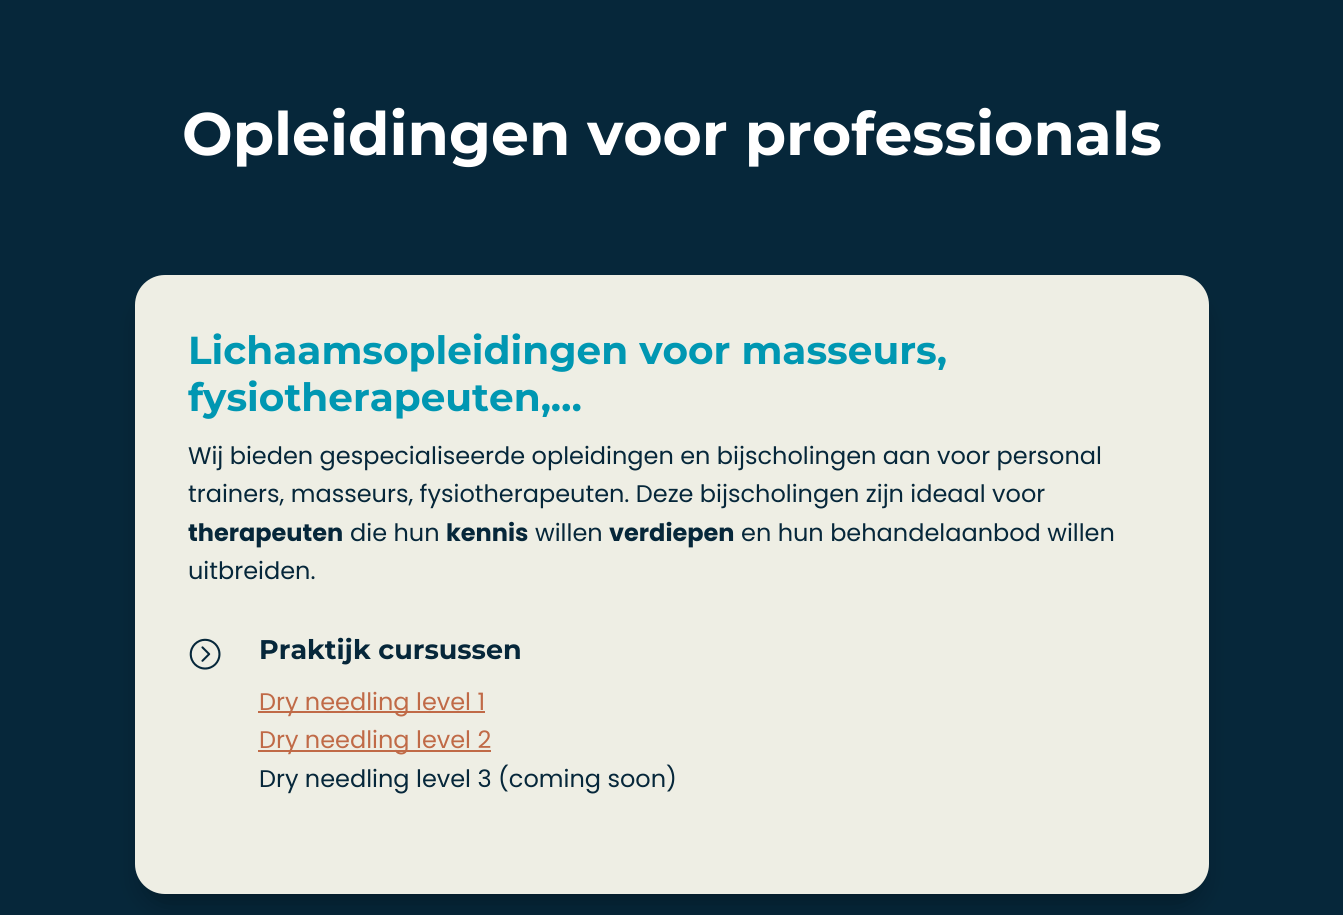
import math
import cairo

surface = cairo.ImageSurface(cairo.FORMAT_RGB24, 1343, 915)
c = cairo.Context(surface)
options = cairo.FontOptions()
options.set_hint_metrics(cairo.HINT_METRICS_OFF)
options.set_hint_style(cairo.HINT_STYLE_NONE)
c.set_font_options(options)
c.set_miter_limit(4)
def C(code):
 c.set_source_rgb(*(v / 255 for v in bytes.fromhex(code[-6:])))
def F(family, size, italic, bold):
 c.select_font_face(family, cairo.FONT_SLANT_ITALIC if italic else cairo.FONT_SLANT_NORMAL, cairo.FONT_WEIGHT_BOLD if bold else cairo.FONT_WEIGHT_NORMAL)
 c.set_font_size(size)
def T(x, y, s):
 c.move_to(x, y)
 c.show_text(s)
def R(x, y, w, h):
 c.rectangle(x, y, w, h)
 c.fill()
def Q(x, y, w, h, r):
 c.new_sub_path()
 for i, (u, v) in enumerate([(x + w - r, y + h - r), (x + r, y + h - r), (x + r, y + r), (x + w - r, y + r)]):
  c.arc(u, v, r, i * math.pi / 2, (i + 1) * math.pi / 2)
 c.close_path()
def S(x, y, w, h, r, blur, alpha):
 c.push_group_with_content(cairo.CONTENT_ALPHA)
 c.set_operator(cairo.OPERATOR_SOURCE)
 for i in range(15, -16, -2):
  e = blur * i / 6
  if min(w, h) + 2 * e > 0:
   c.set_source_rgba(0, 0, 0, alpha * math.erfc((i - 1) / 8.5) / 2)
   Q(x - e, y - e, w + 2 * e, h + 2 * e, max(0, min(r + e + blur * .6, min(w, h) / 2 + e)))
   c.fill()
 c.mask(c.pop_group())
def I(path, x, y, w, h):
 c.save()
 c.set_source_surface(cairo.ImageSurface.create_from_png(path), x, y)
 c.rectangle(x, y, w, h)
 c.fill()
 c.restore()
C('06273a')
c.paint()
F('Montserrat Thin',60,0,0)
C('ffffff')
T(182,155,'Opleidingen voor professionals')
C('000000')
S(144,302,1056,601,21,13.5,.3)
C('eeeee4')
Q(135,275,1074,619,30)
c.fill()
F('Montserrat Thin',39,0,0)
C('0097b2')
T(188,364,'Lichaamsopleidingen voor masseurs,')
T(188,411,'fysiotherapeuten,…')
F('Poppins',24,0,0)
C('06273a')
T(188,464,'Wij bieden gespecialiseerde opleidingen en bijscholingen aan voor personal')
T(188,502,'trainers, masseurs, fysiotherapeuten. Deze bijscholingen zijn ideaal voor')
F('Poppins',24,0,1)
T(188,541,'therapeuten')
F('Poppins',24,0,0)
T(350,541,'die hun')
F('Poppins',24,0,1)
T(446,541,'kennis')
F('Poppins',24,0,0)
T(535,541,'willen')
F('Poppins',24,0,1)
T(609,541,'verdiepen')
F('Poppins',24,0,0)
T(741,541,'en hun behandelaanbod willen')
T(188,579,'uitbreiden.')
I('1.png',189,638,32,32)
F('Montserrat Thin',27,0,0)
T(259,659,'Praktijk cursussen')
C('c06a47')
R(258,711,227,2)
F('Poppins',24,0,0)
T(259,710,'Dry needling level 1')
R(258,750,233,2)
T(259,748,'Dry needling level 2')
C('06273a')
T(259,787,'Dry needling level 3 (coming soon)')
surface.write_to_png('o.png')
